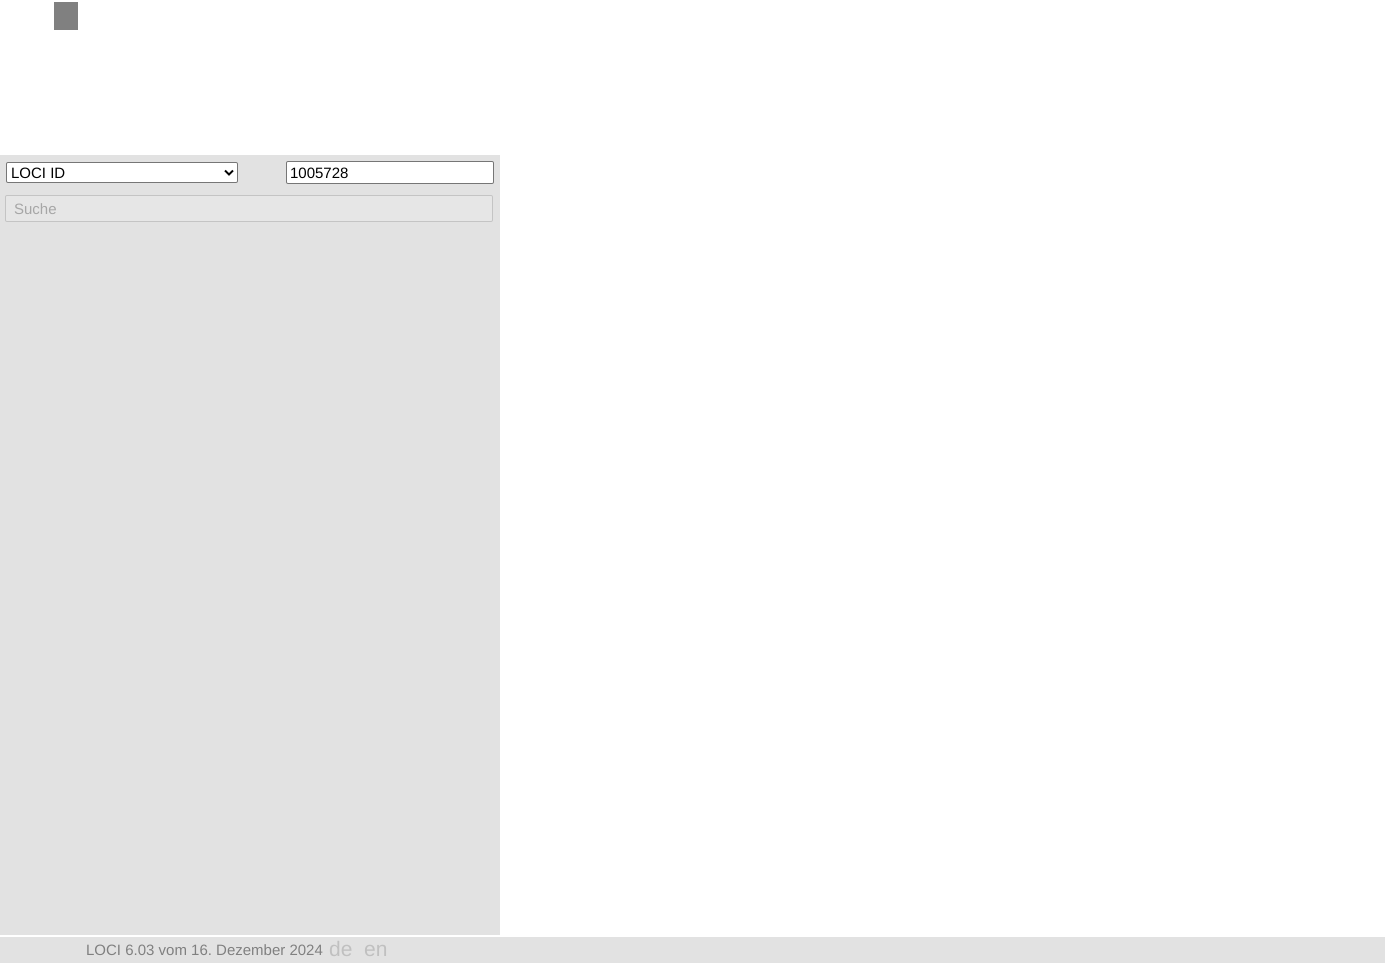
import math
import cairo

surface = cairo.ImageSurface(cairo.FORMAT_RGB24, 1385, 963)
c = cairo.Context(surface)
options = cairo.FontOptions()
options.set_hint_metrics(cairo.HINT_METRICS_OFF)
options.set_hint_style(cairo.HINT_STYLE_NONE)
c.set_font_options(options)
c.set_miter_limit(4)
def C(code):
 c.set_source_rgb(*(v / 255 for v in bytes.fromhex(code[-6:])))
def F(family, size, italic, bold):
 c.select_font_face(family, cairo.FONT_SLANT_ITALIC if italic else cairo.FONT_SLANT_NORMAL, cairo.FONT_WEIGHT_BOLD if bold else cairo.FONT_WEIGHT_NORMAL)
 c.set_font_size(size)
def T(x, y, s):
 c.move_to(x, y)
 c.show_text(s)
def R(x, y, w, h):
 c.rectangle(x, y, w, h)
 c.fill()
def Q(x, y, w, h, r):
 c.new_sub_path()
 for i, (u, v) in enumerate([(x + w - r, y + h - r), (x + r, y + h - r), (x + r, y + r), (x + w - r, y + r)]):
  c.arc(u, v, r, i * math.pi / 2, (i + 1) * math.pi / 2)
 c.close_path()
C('ffffff')
c.paint()
C('808080')
R(54,2,24,28)
C('e2e2e2')
R(0,155,500,780)
C('ffffff')
Q(6.5,162.5,231,20,1.5)
c.fill_preserve()
C('767676')
c.set_line_width(1)
c.stroke()
c.new_path()
c.move_to(225,170.5)
c.line_to(229,174.5)
c.line_to(233,170.5)
C('000000')
c.set_line_width(2)
c.stroke()
F('Liberation Sans',15,0,0)
T(11,178,'LOCI ID')
C('ffffff')
Q(286.5,161.5,207,22,1.5)
c.fill_preserve()
C('767676')
c.set_line_width(1)
c.stroke()
C('000000')
T(290,178,'1005728')
C('e6e6e6')
Q(5.5,195.5,487,26,1.5)
c.fill_preserve()
C('c4c4c4')
c.stroke()
C('a6a6a6')
T(14,214,'Suche')
C('e2e2e2')
R(0,937,1385,26)
C('808080')
T(86,955,'LOCI 6.03 vom 16. Dezember 2024')
F('Liberation Sans',21,0,0)
C('c0c0c0')
T(329,956,'de')
T(364,956,'en')
surface.write_to_png('o.png')
